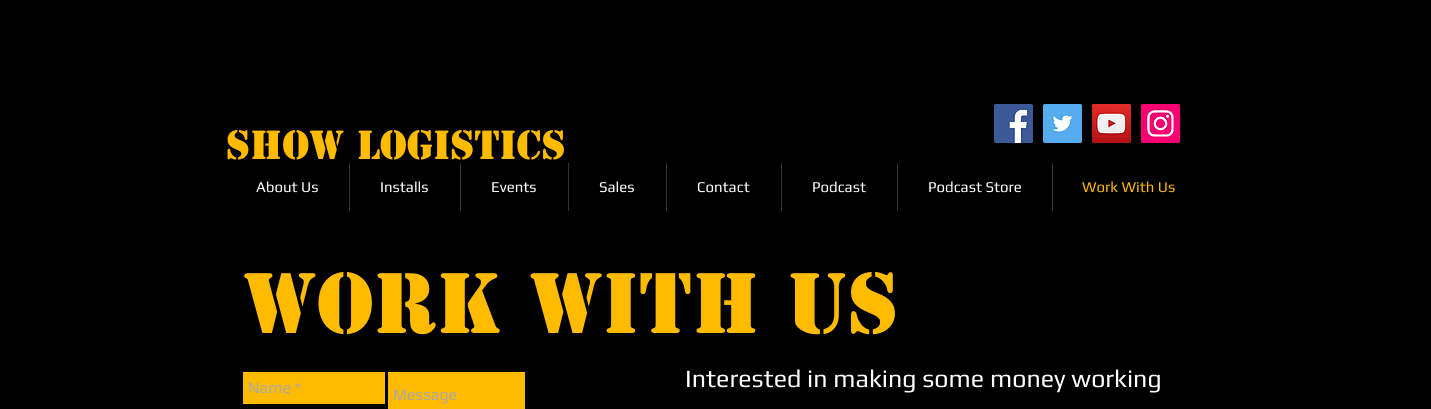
import math
import cairo

surface = cairo.ImageSurface(cairo.FORMAT_RGB24, 1431, 409)
c = cairo.Context(surface)
options = cairo.FontOptions()
options.set_hint_metrics(cairo.HINT_METRICS_OFF)
options.set_hint_style(cairo.HINT_STYLE_NONE)
c.set_font_options(options)
c.set_miter_limit(4)
def C(code):
 c.set_source_rgb(*(v / 255 for v in bytes.fromhex(code[-6:])))
def F(family, size, italic, bold):
 c.select_font_face(family, cairo.FONT_SLANT_ITALIC if italic else cairo.FONT_SLANT_NORMAL, cairo.FONT_WEIGHT_BOLD if bold else cairo.FONT_WEIGHT_NORMAL)
 c.set_font_size(size)
def T(x, y, s):
 c.move_to(x, y)
 c.show_text(s)
def R(x, y, w, h):
 c.rectangle(x, y, w, h)
 c.fill()
def I(path, x, y, w, h):
 c.save()
 c.set_source_surface(cairo.ImageSurface.create_from_png(path), x, y)
 c.rectangle(x, y, w, h)
 c.fill()
 c.restore()
C('000000')
c.paint()
F('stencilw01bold',38,0,1)
C('ffbb00')
T(226,159,'Show Logistics')
I('1.png',994,104,39,39)
I('2.png',1043,104,39,39)
I('3.png',1092,104,39,39)
I('4.png',1141,104,39,39)
F('Play',15,0,0)
C('ffffff')
T(256,192,'About Us')
C('333333')
R(349,163,1,48)
C('ffffff')
T(380,192,'Installs')
C('333333')
R(460,163,1,48)
C('ffffff')
T(491,192,'Events')
C('333333')
R(568,163,1,48)
C('ffffff')
T(599,192,'Sales')
C('333333')
R(666,163,1,48)
C('ffffff')
T(697,192,'Contact')
C('333333')
R(781,163,1,48)
C('ffffff')
T(812,192,'Podcast')
C('333333')
R(897,163,1,48)
C('ffffff')
T(928,192,'Podcast Store')
C('333333')
R(1052,163,1,48)
C('ffbb00')
T(1082,192,'Work With Us')
F('stencilw01bold',80,0,1)
T(243,333,'Work With Us')
R(243,372,142,32)
F('Play',16,0,0)
C('a9a9a9')
T(248,393,'Name *')
C('ffbb00')
R(388,372,137,37)
C('a9a9a9')
T(393,400,'Message')
F('Play',25,0,0)
C('ffffff')
T(685,387,'Interested in making some money working')
surface.write_to_png('o.png')
